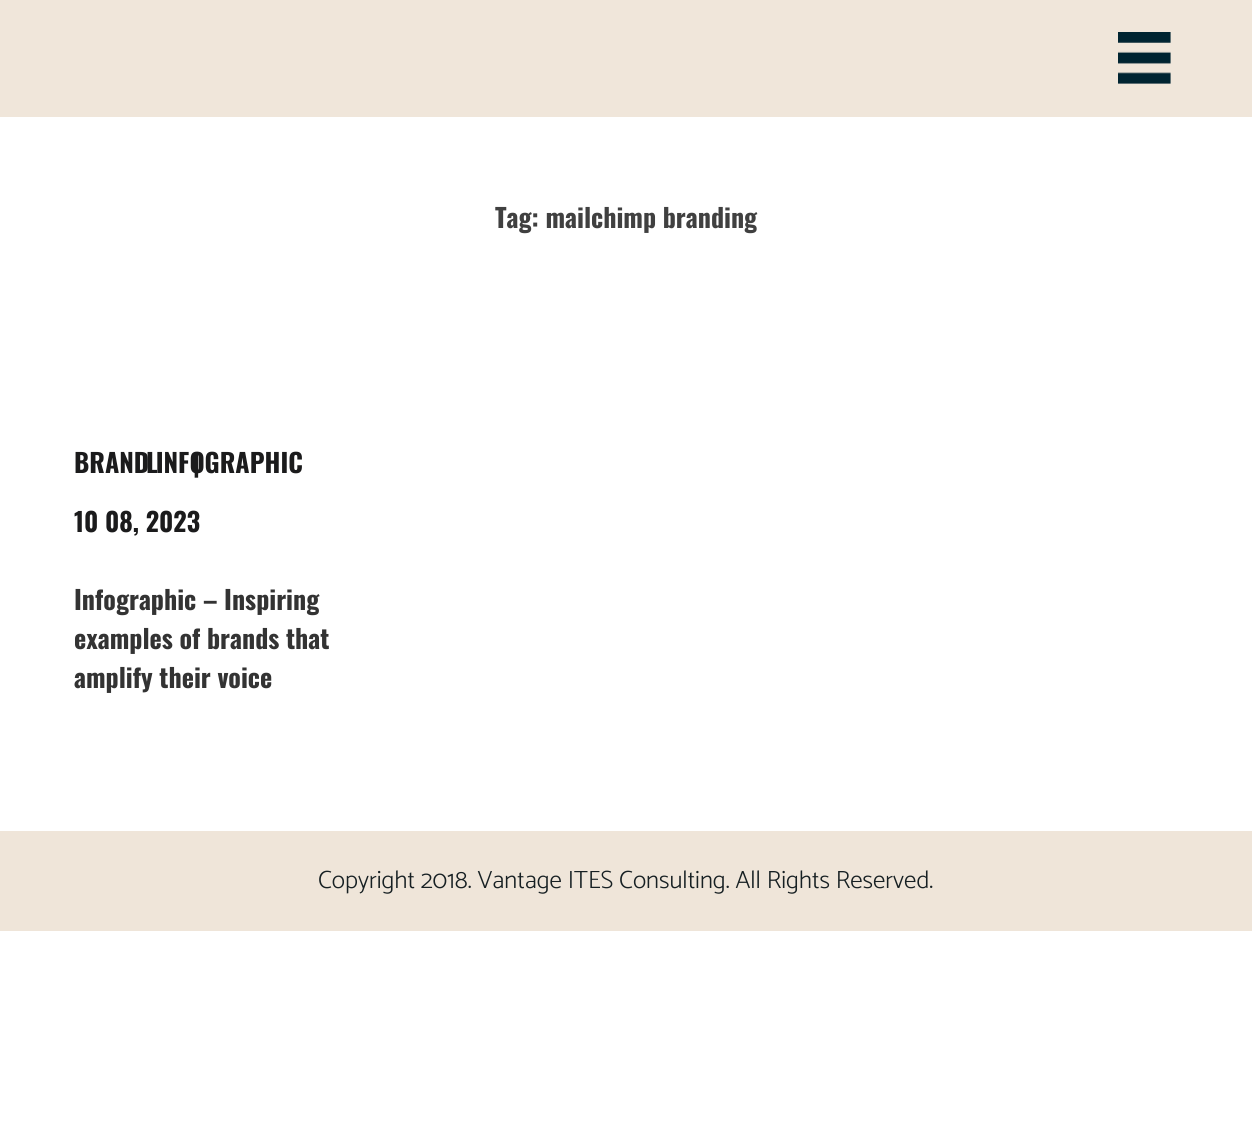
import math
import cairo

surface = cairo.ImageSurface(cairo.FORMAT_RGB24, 1252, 1143)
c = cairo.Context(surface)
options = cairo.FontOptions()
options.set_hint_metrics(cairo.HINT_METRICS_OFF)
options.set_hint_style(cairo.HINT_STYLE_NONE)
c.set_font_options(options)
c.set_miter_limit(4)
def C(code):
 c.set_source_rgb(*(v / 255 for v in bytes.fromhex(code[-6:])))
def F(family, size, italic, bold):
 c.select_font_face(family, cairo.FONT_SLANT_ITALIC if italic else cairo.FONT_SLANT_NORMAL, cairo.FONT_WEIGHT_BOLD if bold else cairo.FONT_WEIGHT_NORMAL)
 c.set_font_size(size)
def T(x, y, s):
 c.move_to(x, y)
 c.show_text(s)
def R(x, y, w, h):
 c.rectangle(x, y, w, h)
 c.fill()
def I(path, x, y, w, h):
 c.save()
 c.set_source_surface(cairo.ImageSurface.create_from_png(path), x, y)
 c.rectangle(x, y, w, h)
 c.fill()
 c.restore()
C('ffffff')
c.paint()
C('f0e6da')
R(0,0,1252,117)
I('1.png',1118,32,53,52)
F('Oswald',26,0,1)
C('404040')
T(495,228,'Tag: mailchimp branding')
C('1b1b1c')
T(74,473,'BRAND INFOGRAPHIC')
T(146,473,'L')
T(193,473,'|')
T(74,532,'10 08, 2023')
C('333333')
T(74,610,'Infographic – Inspiring')
T(74,649,'examples of brands that')
T(74,688,'amplify their voice')
C('efe5d9')
R(0,831,1252,100)
F('Catamaran Light',25,0,0)
C('172023')
T(318,888,'Copyright 2018. Vantage ITES Consulting. All Rights Reserved.')
surface.write_to_png('o.png')
